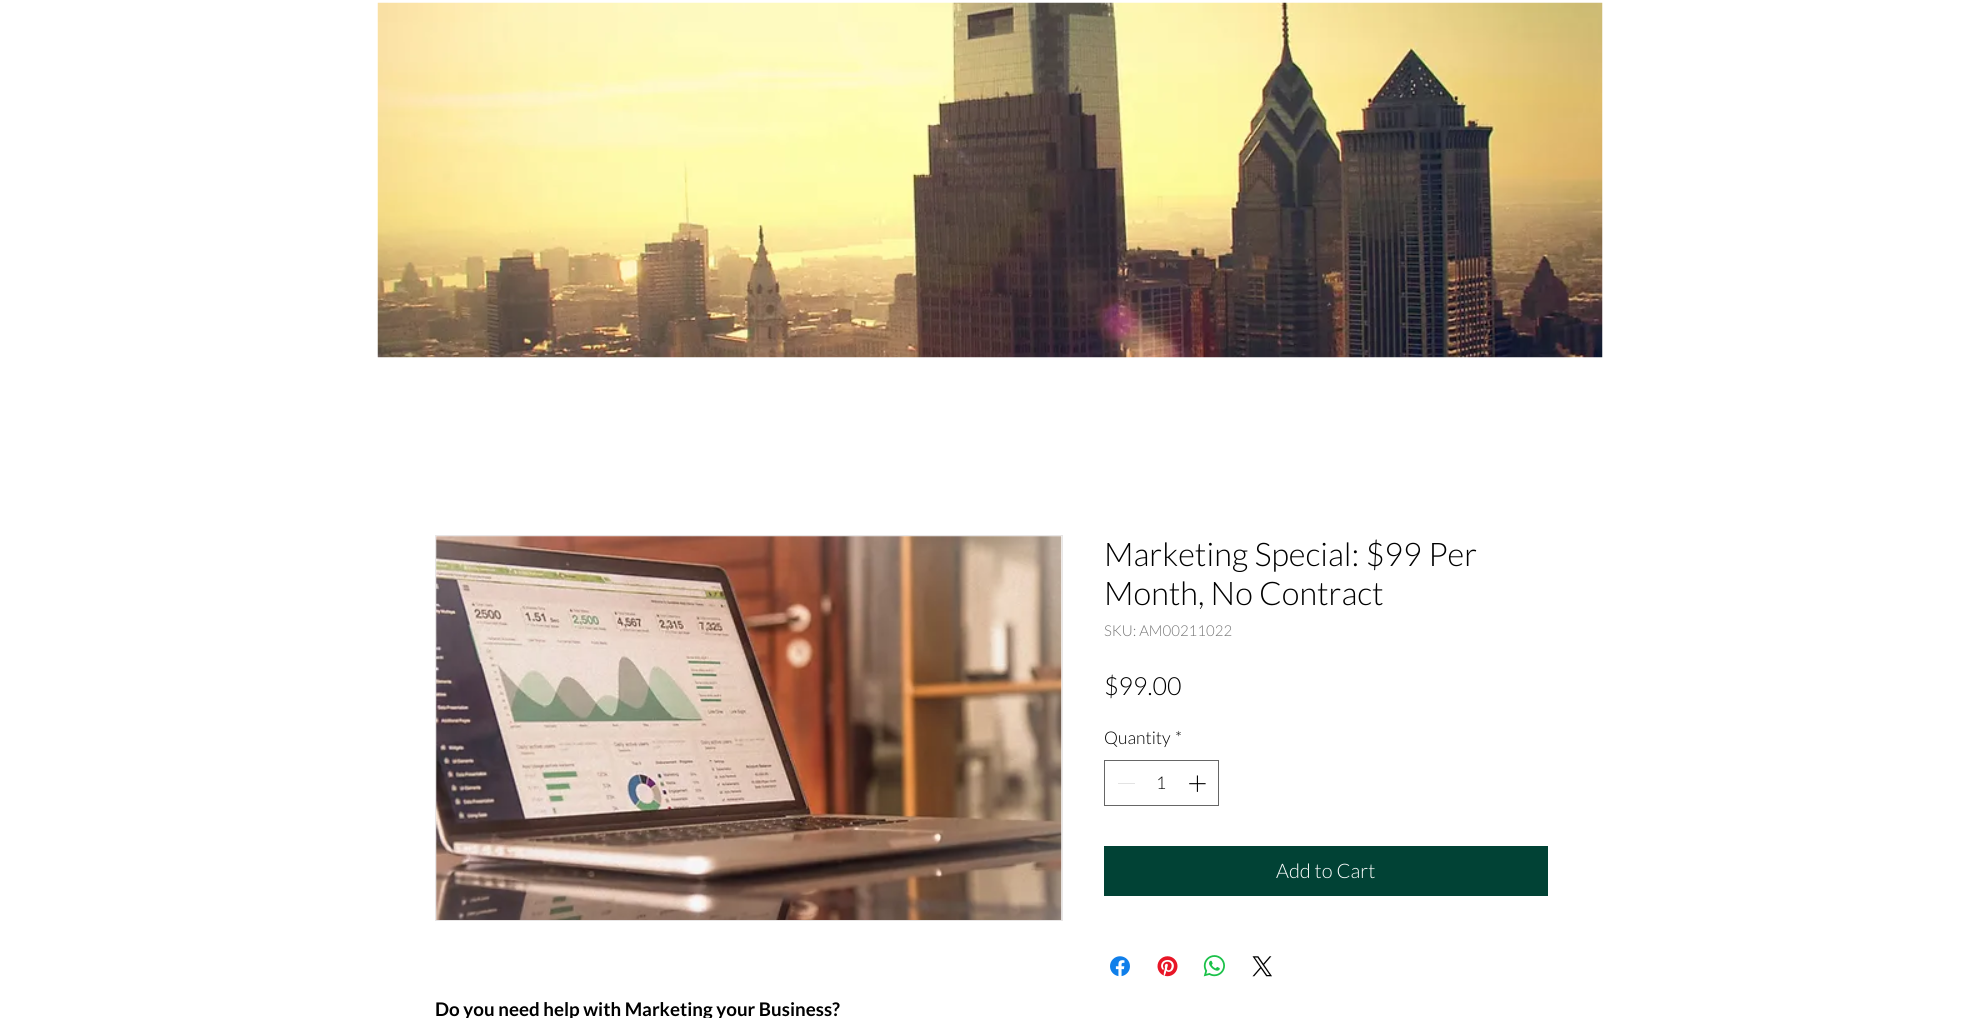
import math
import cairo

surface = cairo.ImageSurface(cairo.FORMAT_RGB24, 1982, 1018)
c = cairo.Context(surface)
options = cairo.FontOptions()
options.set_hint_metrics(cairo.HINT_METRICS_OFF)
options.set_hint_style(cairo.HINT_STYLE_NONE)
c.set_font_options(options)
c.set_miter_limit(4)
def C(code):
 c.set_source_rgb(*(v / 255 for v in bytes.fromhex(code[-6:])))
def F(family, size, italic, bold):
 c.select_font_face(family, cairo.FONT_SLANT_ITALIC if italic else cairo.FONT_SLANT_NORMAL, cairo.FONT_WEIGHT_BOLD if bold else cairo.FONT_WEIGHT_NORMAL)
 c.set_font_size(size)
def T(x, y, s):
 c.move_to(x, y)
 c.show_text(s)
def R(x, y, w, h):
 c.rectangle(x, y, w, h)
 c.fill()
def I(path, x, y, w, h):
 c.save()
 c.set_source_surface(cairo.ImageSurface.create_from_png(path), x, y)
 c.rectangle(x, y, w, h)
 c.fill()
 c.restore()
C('ffffff')
c.paint()
I('1.png',377,2,1226,356)
F('Lato Light',32.5,0,0)
C('000000')
T(1104,566,'Marketing Special: $99 Per')
T(1104,605,'Month, No Contract')
F('Lato Light',15,0,0)
C('757575')
T(1104,636,'SKU: AM00211022')
F('Lato Light',25,0,0)
C('000000')
T(1104,695,'$99.00')
F('Lato Light',17.5,0,0)
T(1104,744,'Quantity')
T(1175,744,'*')
c.rectangle(1104.5,760.5,114,45)
C('666666')
c.set_line_width(1)
c.stroke()
C('e3e3e3')
R(1118,783,17,1)
C('000000')
T(1156,789,'1')
I('2.png',1189,775,17,17)
C('014235')
R(1104,846,444,50)
F('Lato Light',20,0,0)
C('ffffff')
T(1276,878,'Add to Cart')
I('3.png',1110,956,20,21)
I('4.png',1157,956,21,21)
I('5.png',1203,955,22,22)
I('6.png',1252,956,20,21)
c.rectangle(435.5,535.5,627,385)
C('e8e6e6')
c.stroke()
I('7.png',436,536,626,384)
F('Lato',18.75,0,1)
C('000000')
T(435,1016,'Do you need help with Marketing your Business?')
surface.write_to_png('o.png')
